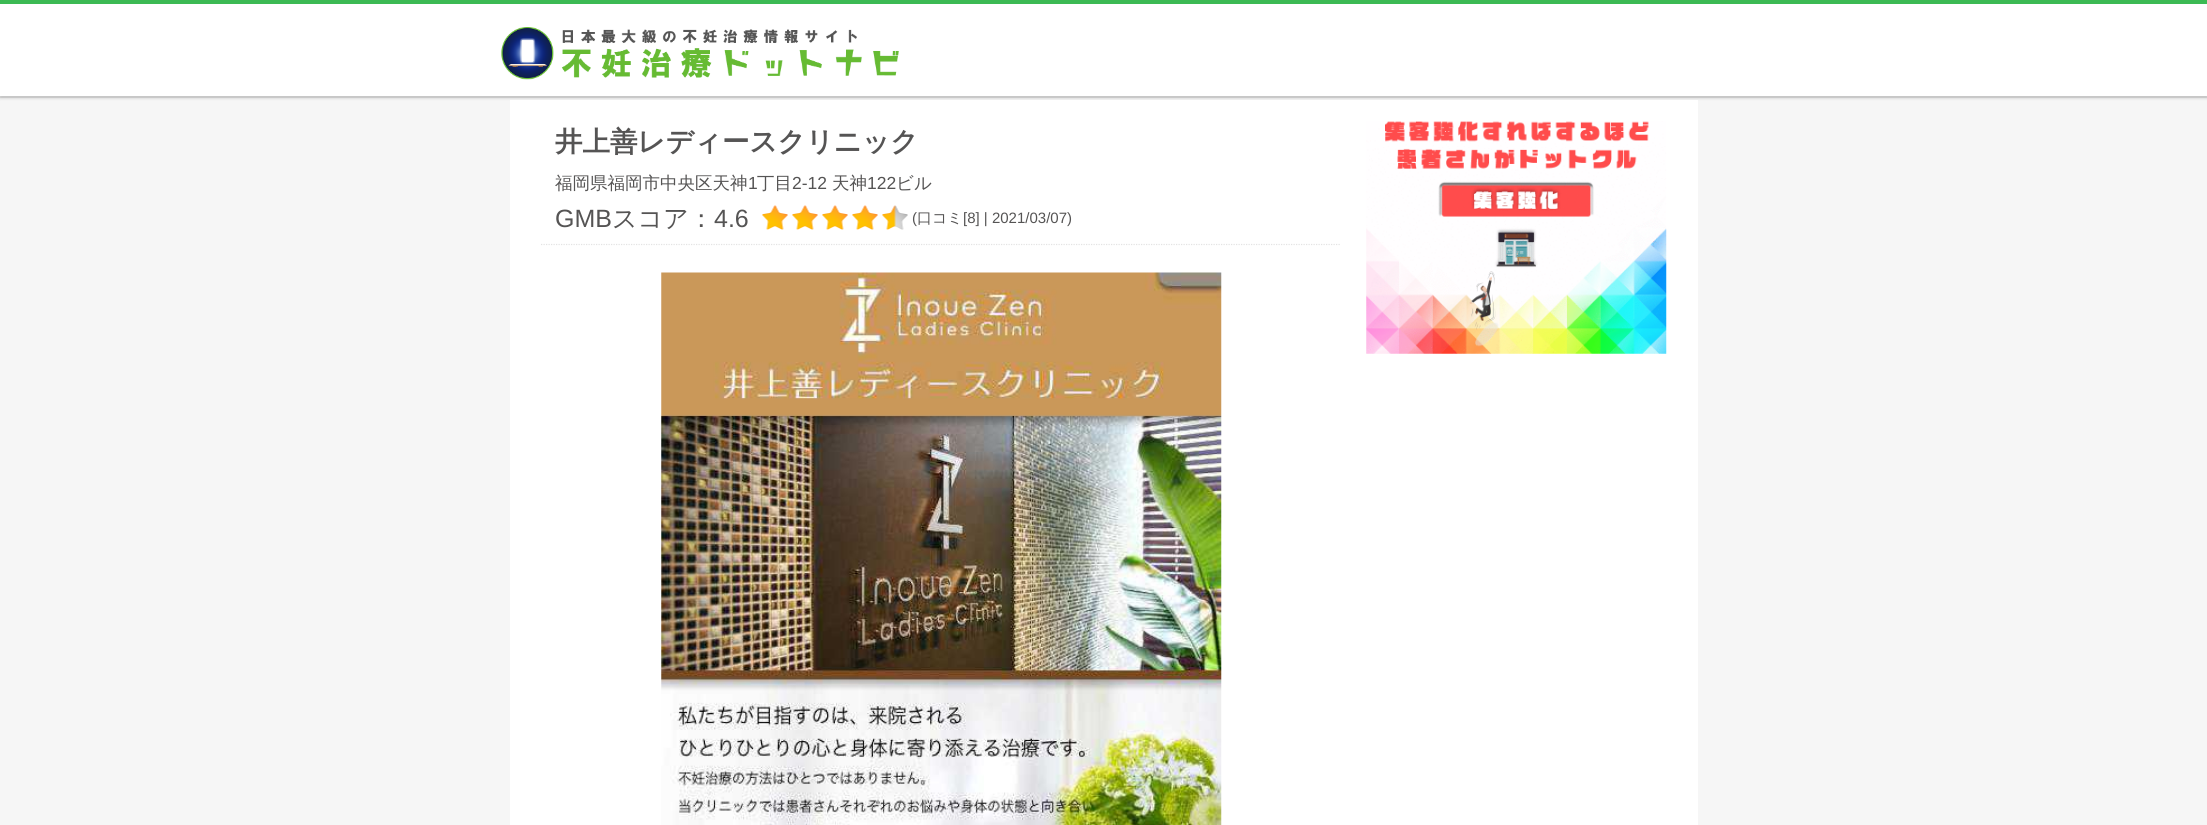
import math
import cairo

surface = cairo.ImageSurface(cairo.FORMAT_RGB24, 2207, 825)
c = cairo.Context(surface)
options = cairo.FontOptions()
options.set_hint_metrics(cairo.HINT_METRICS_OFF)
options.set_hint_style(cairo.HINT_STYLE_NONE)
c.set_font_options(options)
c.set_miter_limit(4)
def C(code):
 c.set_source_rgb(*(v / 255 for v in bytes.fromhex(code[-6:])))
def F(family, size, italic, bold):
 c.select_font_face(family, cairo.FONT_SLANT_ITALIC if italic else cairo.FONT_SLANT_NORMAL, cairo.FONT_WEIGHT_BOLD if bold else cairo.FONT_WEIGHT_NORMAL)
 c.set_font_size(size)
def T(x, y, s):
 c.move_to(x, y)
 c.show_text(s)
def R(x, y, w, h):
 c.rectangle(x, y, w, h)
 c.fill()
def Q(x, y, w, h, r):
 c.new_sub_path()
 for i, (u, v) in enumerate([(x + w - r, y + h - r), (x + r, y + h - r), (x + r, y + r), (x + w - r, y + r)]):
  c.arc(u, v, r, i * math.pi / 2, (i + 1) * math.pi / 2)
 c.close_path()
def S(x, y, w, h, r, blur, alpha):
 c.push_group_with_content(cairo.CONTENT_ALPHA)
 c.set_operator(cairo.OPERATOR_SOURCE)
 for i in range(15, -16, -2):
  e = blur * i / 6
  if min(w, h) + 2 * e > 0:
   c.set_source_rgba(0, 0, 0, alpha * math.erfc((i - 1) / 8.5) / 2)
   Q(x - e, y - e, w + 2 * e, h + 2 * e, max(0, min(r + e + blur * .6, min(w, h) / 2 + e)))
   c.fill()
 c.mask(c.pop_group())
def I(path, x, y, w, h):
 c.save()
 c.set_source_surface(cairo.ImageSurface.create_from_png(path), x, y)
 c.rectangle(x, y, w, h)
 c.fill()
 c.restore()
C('f6f6f6')
c.paint()
C('dddddd')
c.new_path()
c.move_to(0,96)
c.line_to(0,98)
c.line_to(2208,98)
c.line_to(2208,1)
c.line_to(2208,96)
c.close_path()
c.fill()
C('000000')
S(0,3,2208,96,0,1,.1)
C('ffffff')
R(0,4,2207,92)
C('3cba54')
R(0,0,2207,4)
I('1.png',501,27,398,53)
C('ffffff')
R(510,100,1188,725)
c.new_path()
c.move_to(541,244.5)
c.line_to(1341,244.5)
C('e3e3e3')
c.set_line_width(1.2)
c.set_dash([1.25,1.25])
c.stroke()
F('WenQuanYi Zen Hei',27.5,0,1)
C('555454')
T(555,151,'井上善レディースクリニック')
F('WenQuanYi Zen Hei Medium',17.5,0,0)
T(555,189,'福岡県福岡市中央区天神')
F('Liberation Sans',17.5,0,0)
T(748,189,'1')
F('WenQuanYi Zen Hei Medium',17.5,0,0)
T(757,189,'丁目')
F('Liberation Sans',17.5,0,0)
T(792,189,'2-12')
F('WenQuanYi Zen Hei Medium',17.5,0,0)
T(832,189,'天神')
F('Liberation Sans',17.5,0,0)
T(867,189,'122')
F('WenQuanYi Zen Hei Medium',17.5,0,0)
T(896,189,'ビル')
F('Liberation Sans',25,0,0)
T(555,227,'GMB')
F('WenQuanYi Zen Hei Medium',25,0,0)
T(612,227,'スコア：')
F('Liberation Sans',25,0,0)
T(714,227,'4.6')
I('2.png',762,205,26,25)
I('2.png',792,205,26,25)
I('2.png',822,205,26,25)
I('2.png',852,205,26,25)
I('3.png',882,205,26,25)
F('Liberation Sans',15,0,0)
T(912,223,'(')
F('WenQuanYi Zen Hei Medium',15,0,0)
T(917,223,'口コミ')
F('Liberation Sans',15,0,0)
T(963,223,'[8] | 2021/03/07)')
I('4.png',661,272,561,553)
I('5.png',1366,121,301,233)
surface.write_to_png('o.png')
